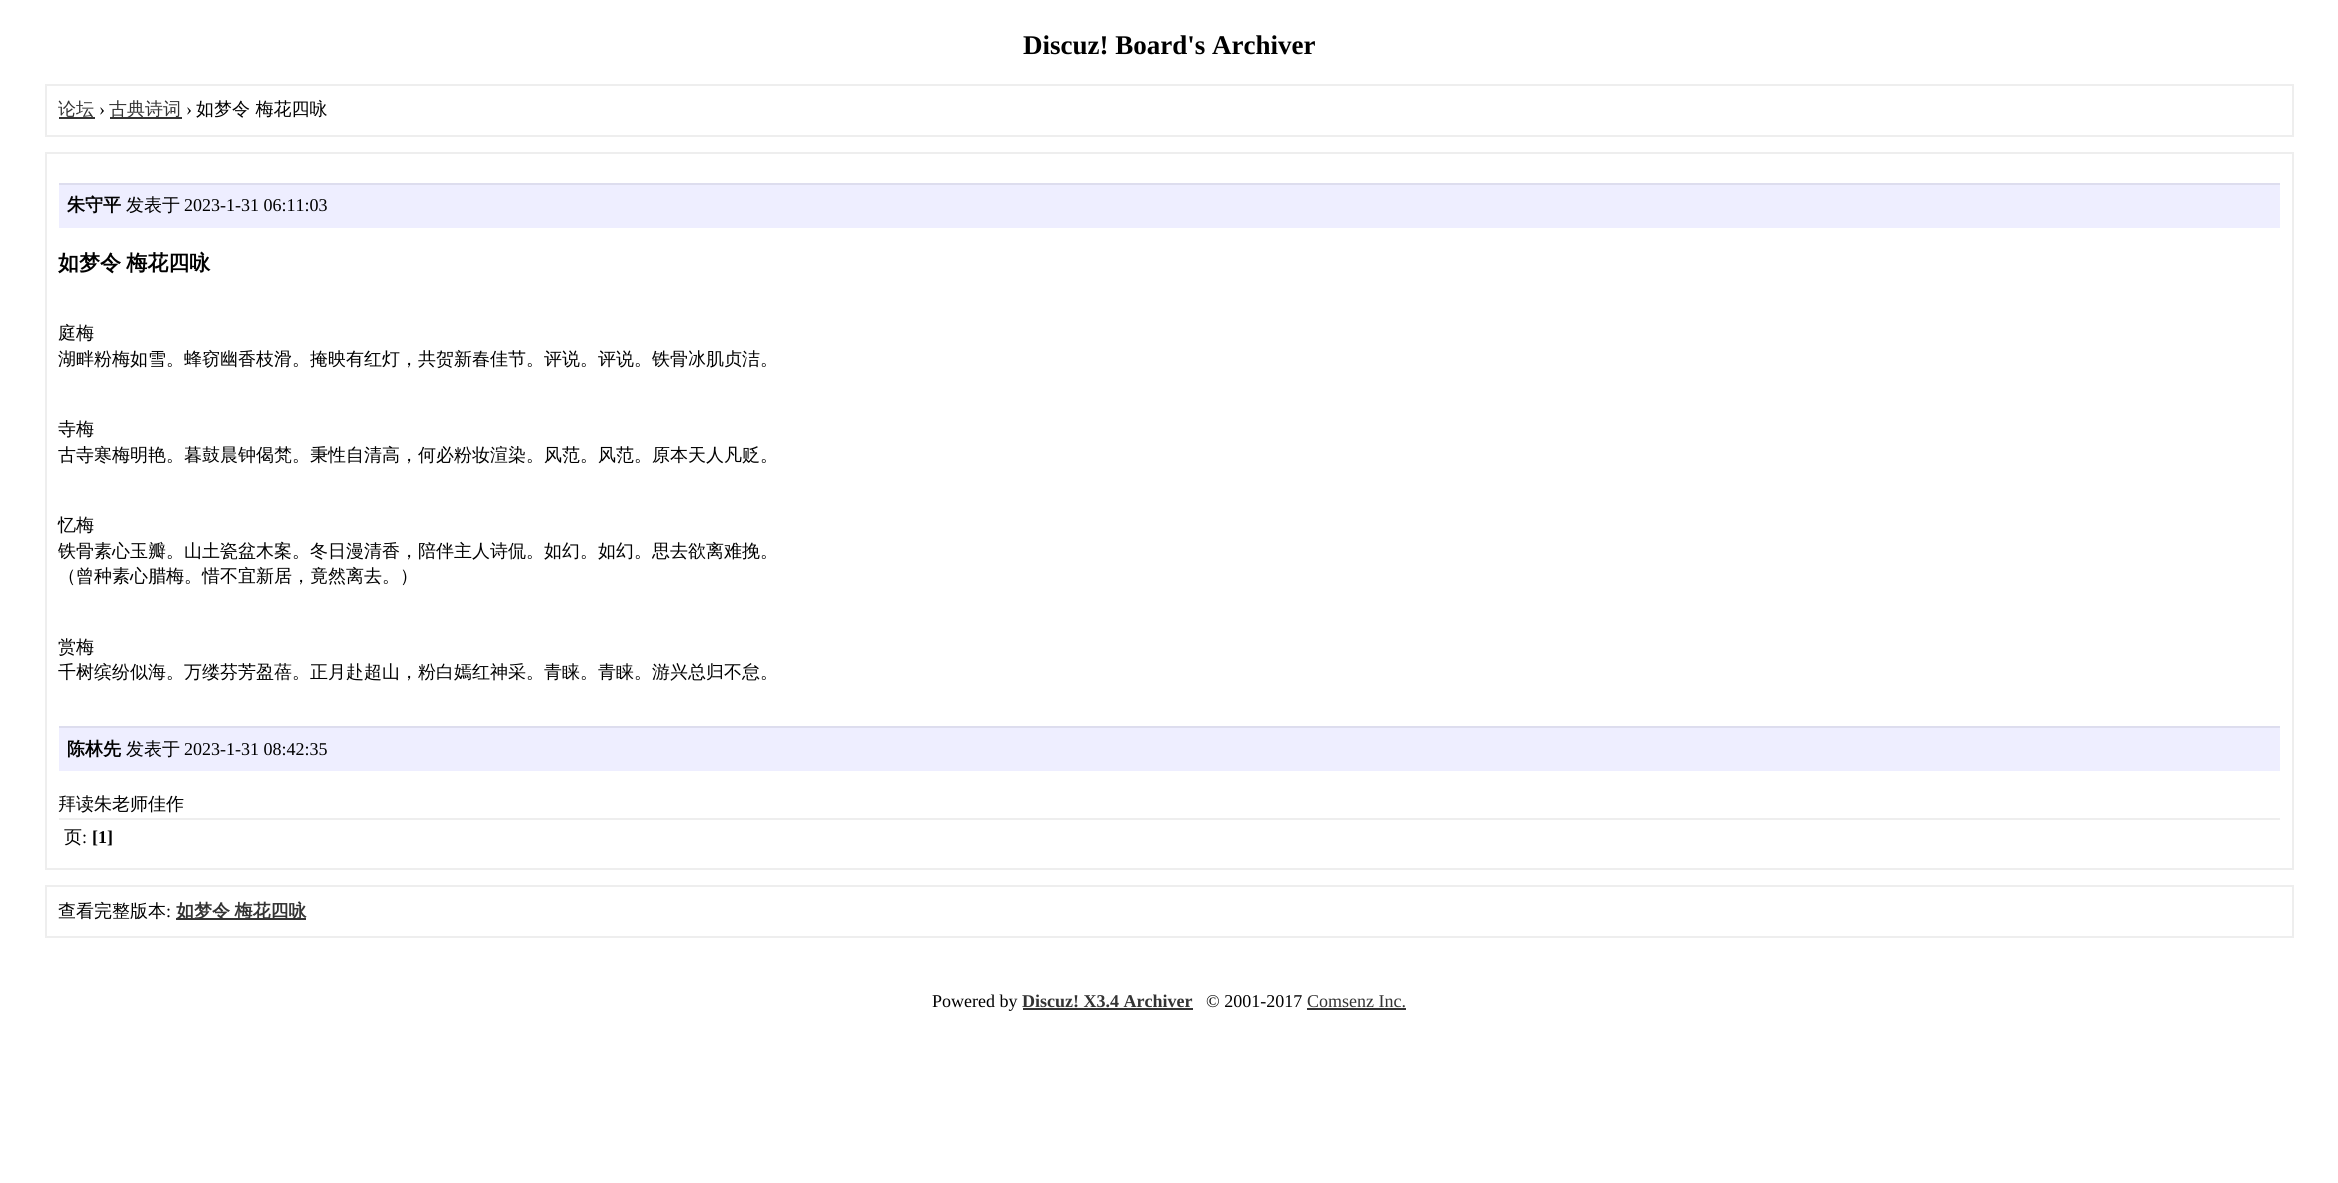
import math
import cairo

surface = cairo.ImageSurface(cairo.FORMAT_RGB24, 2338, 1183)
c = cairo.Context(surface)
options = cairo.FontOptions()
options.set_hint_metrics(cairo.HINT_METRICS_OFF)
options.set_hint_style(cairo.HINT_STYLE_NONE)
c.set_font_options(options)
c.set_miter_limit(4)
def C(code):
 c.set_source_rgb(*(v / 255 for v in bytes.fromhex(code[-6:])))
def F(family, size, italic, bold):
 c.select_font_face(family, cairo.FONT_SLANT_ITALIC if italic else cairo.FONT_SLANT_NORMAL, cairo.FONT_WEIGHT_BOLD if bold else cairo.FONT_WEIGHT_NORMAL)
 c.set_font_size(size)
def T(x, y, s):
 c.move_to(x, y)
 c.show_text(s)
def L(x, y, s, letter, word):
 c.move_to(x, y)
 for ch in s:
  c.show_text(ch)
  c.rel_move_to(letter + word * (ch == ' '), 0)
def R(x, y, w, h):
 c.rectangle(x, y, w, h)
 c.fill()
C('ffffff')
c.paint()
F('Liberation Serif',27,0,1)
C('000000')
T(1023,54,'Discuz! Board\'s Archiver')
c.rectangle(46,85,2247,51)
C('eeeeee')
c.stroke()
C('333333')
R(59,117,36,2)
F('WenQuanYi Zen Hei Medium',18,0,0)
T(58,115,'论坛')
F('Liberation Serif',18,0,0)
C('000000')
T(99,115,'›')
C('333333')
R(110,117,72,2)
F('WenQuanYi Zen Hei Medium',18,0,0)
T(109,115,'古典诗词')
F('Liberation Serif',18,0,0)
C('000000')
T(186,115,'›')
F('WenQuanYi Zen Hei Medium',18,0,0)
T(196,115,'如梦令 梅花四咏')
c.rectangle(46,153,2247,716)
C('eeeeee')
c.stroke()
C('eeeeff')
R(59,185,2221,43)
C('ddddee')
R(59,183,2221,2)
F('WenQuanYi Zen Hei',18,0,1)
C('000000')
T(67,211,'朱守平')
F('WenQuanYi Zen Hei Medium',18,0,0)
T(126,211,'发表于')
F('Liberation Serif',18,0,0)
T(184,211,'2023-1-31 06:11:03')
F('WenQuanYi Zen Hei',21,0,1)
L(58,270,'如梦令 梅花四咏',0,-1)
F('WenQuanYi Zen Hei Medium',18,0,0)
T(58,339,'庭梅')
T(58,365,'湖畔粉梅如雪。蜂窃幽香枝滑。掩映有红灯，共贺新春佳节。评说。评说。铁骨冰肌贞洁。')
T(58,435,'寺梅')
T(58,461,'古寺寒梅明艳。暮鼓晨钟偈梵。秉性自清高，何必粉妆渲染。风范。风范。原本天人凡贬。')
T(58,531,'忆梅')
T(58,557,'铁骨素心玉瓣。山土瓷盆木案。冬日漫清香，陪伴主人诗侃。如幻。如幻。思去欲离难挽。')
T(58,582,'（曾种素心腊梅。惜不宜新居，竟然离去。）')
T(58,653,'赏梅')
T(58,678,'千树缤纷似海。万缕芬芳盈蓓。正月赴超山，粉白嫣红神采。青睐。青睐。游兴总归不怠。')
C('eeeeff')
R(59,728,2221,43)
C('ddddee')
R(59,726,2221,2)
F('WenQuanYi Zen Hei',18,0,1)
C('000000')
T(67,755,'陈林先')
F('WenQuanYi Zen Hei Medium',18,0,0)
T(126,755,'发表于')
F('Liberation Serif',18,0,0)
T(184,755,'2023-1-31 08:42:35')
F('WenQuanYi Zen Hei Medium',18,0,0)
T(58,810,'拜读朱老师佳作')
C('eeeeee')
R(59,818,2221,2)
C('000000')
T(64,843,'页')
F('Liberation Serif',18,0,0)
T(82,843,':')
F('Liberation Serif',18,0,1)
T(92,843,'[1]')
c.rectangle(46,886,2247,51)
C('eeeeee')
c.stroke()
F('WenQuanYi Zen Hei Medium',18,0,0)
C('000000')
T(58,917,'查看完整版本')
F('Liberation Serif',18,0,0)
T(166,917,':')
C('333333')
R(176,918,130,2)
F('WenQuanYi Zen Hei',18,0,1)
L(176,917,'如梦令 梅花四咏',0,-1)
F('Liberation Serif',18,0,0)
C('000000')
T(932,1007,'Powered by')
F('Liberation Serif',18,0,1)
C('333333')
T(1022,1007,'Discuz! X3.4 Archiver')
R(1023,1008,170,2)
F('Liberation Serif',18,0,0)
C('000000')
T(1206,1007,'© 2001-2017')
C('333333')
T(1307,1007,'Comsenz Inc.')
R(1307,1008,99,2)
surface.write_to_png('o.png')
